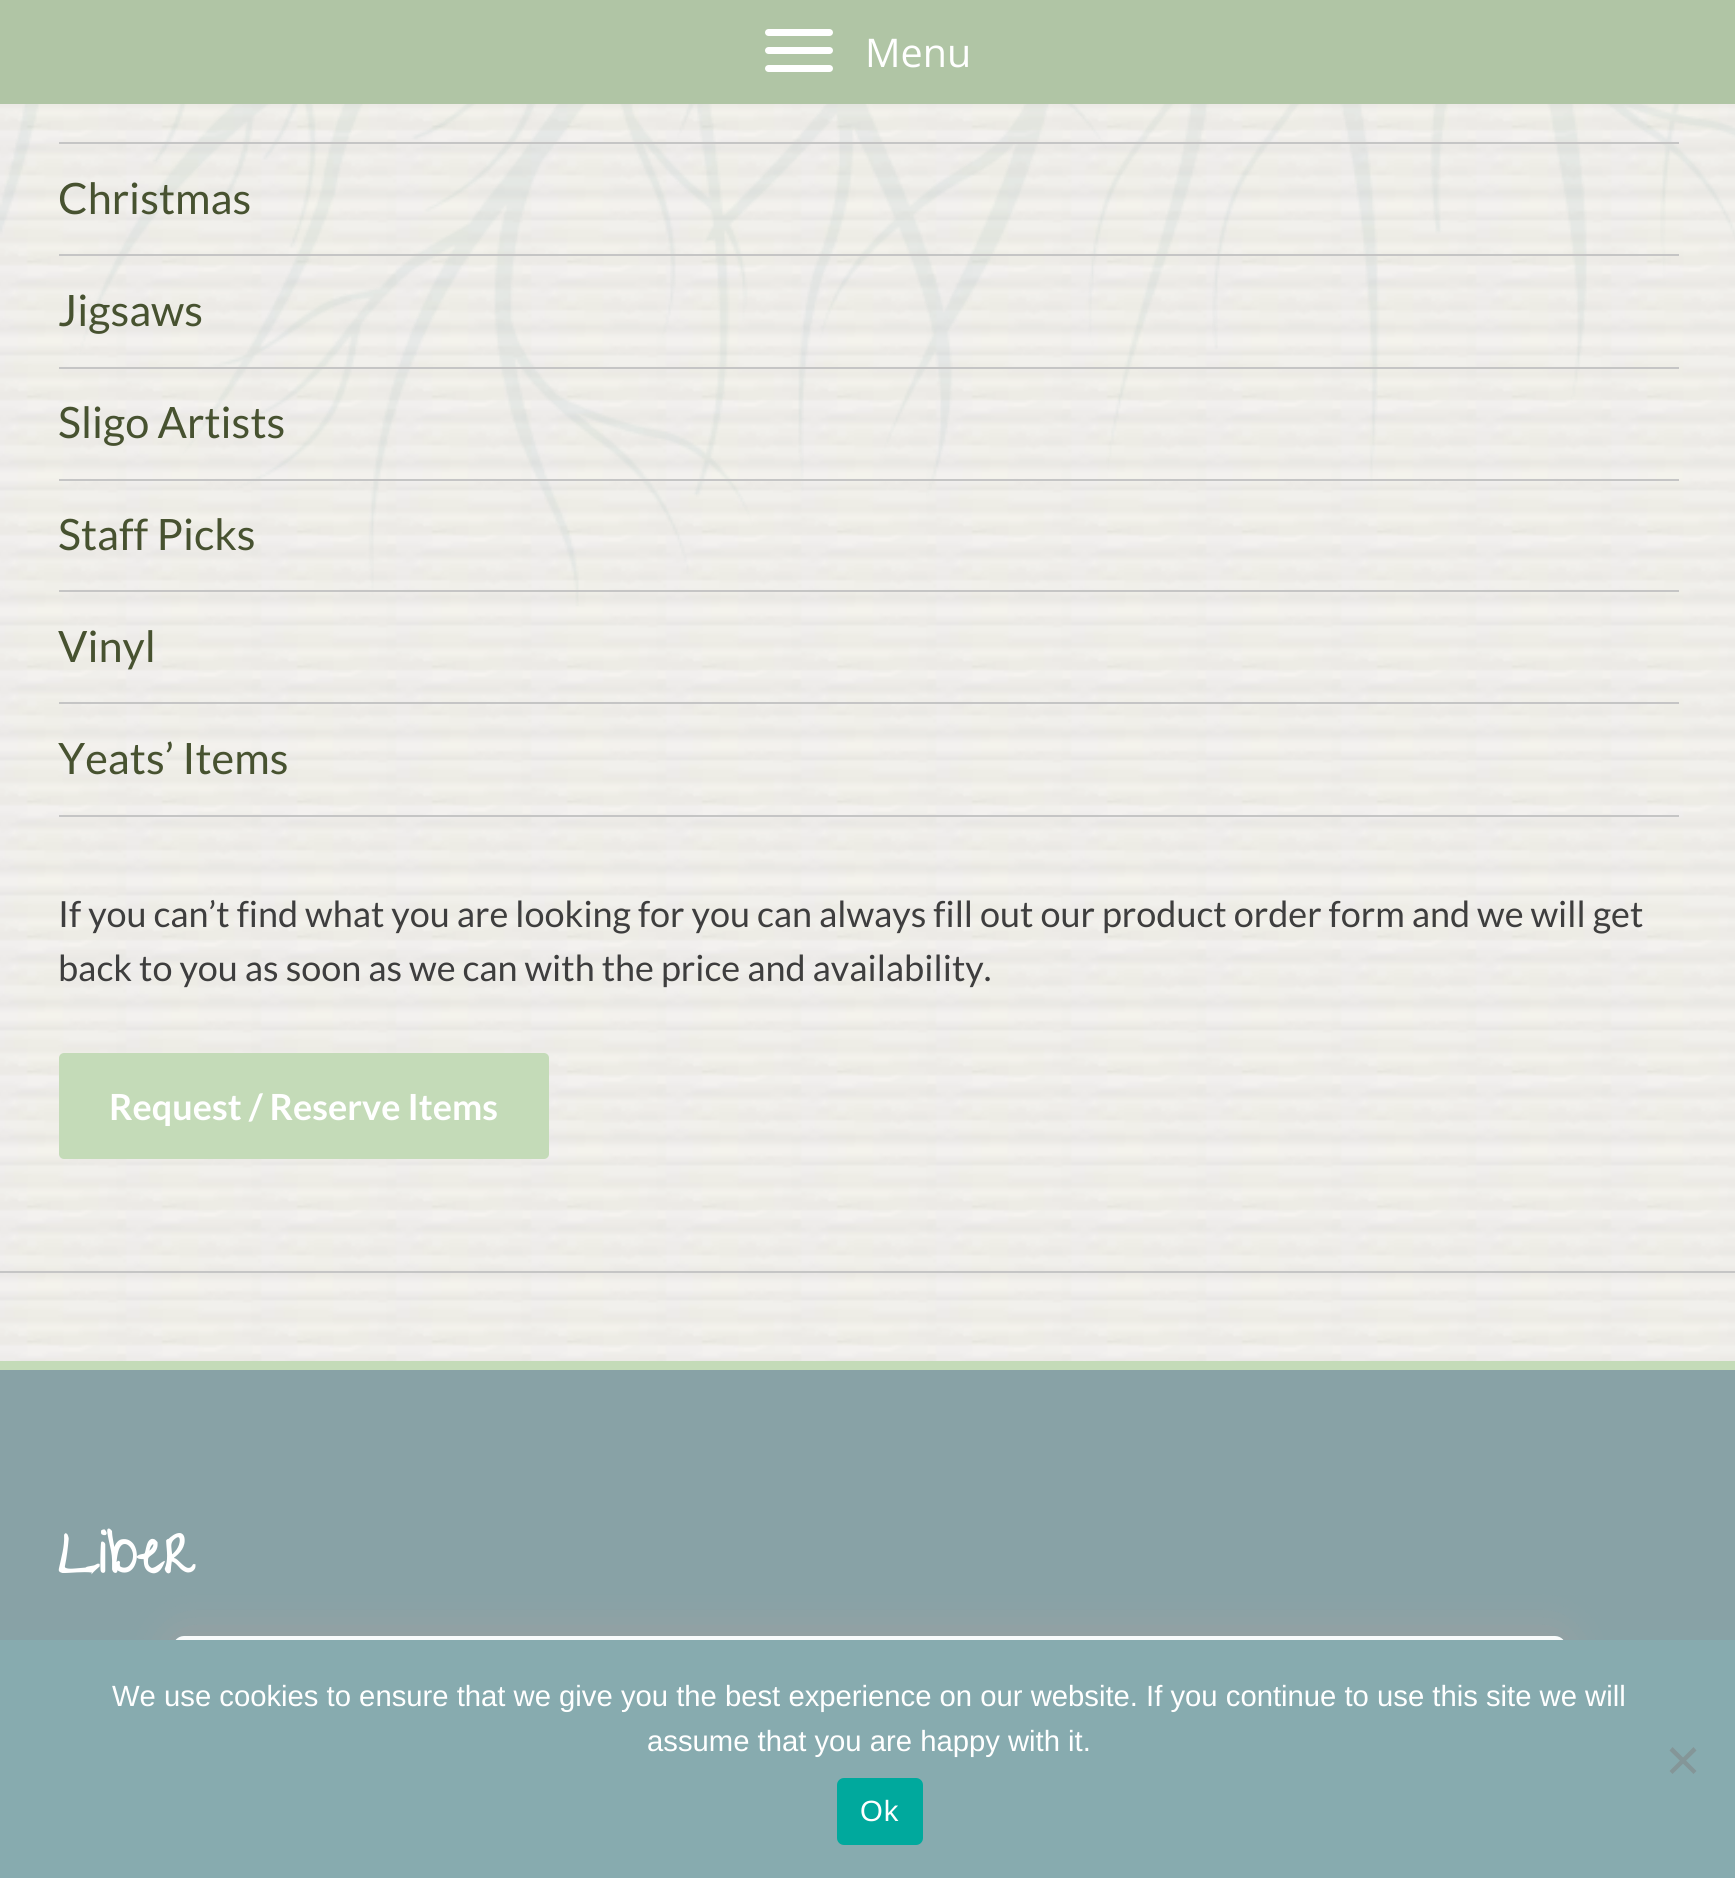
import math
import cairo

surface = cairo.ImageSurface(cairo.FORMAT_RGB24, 1735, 1878)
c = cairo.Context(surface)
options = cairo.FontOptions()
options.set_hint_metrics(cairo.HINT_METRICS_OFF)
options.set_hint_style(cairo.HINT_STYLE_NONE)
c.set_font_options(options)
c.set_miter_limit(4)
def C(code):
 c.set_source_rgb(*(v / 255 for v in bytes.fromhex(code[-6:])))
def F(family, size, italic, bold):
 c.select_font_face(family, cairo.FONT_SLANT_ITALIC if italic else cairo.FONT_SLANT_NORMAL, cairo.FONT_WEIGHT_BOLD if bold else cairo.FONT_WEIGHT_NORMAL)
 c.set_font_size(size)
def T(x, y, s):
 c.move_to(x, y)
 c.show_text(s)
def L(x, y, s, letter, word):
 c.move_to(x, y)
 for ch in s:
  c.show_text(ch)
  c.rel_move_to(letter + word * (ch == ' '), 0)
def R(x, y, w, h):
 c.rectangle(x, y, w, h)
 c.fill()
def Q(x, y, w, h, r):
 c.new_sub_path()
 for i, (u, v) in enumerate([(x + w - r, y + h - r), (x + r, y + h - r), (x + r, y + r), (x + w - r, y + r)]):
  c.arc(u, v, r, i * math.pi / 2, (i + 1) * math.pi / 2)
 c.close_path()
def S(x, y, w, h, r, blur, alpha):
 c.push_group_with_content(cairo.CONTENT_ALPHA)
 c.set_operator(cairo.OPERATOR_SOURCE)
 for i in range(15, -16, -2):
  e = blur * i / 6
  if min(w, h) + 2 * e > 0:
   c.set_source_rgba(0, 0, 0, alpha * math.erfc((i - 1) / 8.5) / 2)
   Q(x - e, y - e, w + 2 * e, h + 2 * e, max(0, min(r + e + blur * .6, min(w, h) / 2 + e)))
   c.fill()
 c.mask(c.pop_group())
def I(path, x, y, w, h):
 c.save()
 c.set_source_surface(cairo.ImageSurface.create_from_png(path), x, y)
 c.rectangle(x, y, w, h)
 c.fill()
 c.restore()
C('ffffff')
c.paint()
I('1.png',0,104,1735,1257)
I('2.png',0,104,1735,502)
C('b0c5a5')
R(0,0,1735,104)
C('ffffff')
Q(765,29,68,7,3.5)
c.fill()
Q(765,47,68,7,3.5)
c.fill()
Q(765,65,68,7,3.5)
c.fill()
F('Open Sans',39.5,0,0)
T(865,67,'Menu')
C('c5c5c5')
R(59,142,1620,2)
R(59,254,1620,2)
F('Lato',43.25,0,0)
C('475230')
T(58,214,'Christmas')
C('c5c5c5')
R(59,367,1620,2)
C('475230')
T(58,326,'Jigsaws')
C('c5c5c5')
R(59,479,1620,2)
C('475230')
T(58,438,'Sligo Artists')
C('c5c5c5')
R(59,590,1620,2)
C('475230')
T(58,550,'Staff Picks')
C('c5c5c5')
R(59,702,1620,2)
C('475230')
T(58,662,'Vinyl')
C('c5c5c5')
R(59,815,1620,2)
C('475230')
T(58,774,'Yeats’ Items')
F('Lato',36,0,0)
C('3e3e3e')
T(58,927,'If you can’t find what you are looking for you can always fill out our product order form and we will get')
T(58,981,'back to you as soon as we can with the price and availability.')
C('c4dbb8')
Q(59,1053,490,106,5)
c.fill()
F('Lato',36,0,1)
C('ffffff')
T(109,1120,'Request / Reserve Items')
C('c5c5c5')
R(0,1271,1735,2)
C('88a2a6')
R(0,1370,1735,270)
C('c4dbb8')
R(0,1361,1735,9)
F('Give You Glory',61,0,1)
C('ffffff')
T(58,1573,'Liber')
c.save()
c.set_fill_rule(cairo.FILL_RULE_EVEN_ODD)
c.new_path()
c.move_to(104,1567)
c.line_to(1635,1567)
c.line_to(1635,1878)
c.line_to(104,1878)
c.close_path()
c.move_to(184,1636)
c.line_to(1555,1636)
c.curve_to(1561,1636,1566,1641,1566,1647)
c.line_to(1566,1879)
c.line_to(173,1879)
c.line_to(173,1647)
c.curve_to(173,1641,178,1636,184,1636)
c.close_path()
c.clip()
C('a1a1a1')
S(173,1636,1393,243,11,22.5,.95)
c.restore()
c.set_source_rgba(1,1,1,0.95)
c.new_path()
c.move_to(184,1636)
c.line_to(1555,1636)
c.curve_to(1561,1636,1566,1641,1566,1647)
c.line_to(1566,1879)
c.line_to(173,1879)
c.line_to(173,1647)
c.curve_to(173,1641,178,1636,184,1636)
c.close_path()
c.fill()
C('87abaf')
R(0,1640,1735,238)
F('Liberation Sans',29.25,0,0)
C('ffffff')
T(112,1706,'We use cookies to ensure that we give you the best experience on our website. If you continue to use this site we will')
T(647,1751,'assume that you are happy with it.')
C('849698')
c.new_path()
c.move_to(1693.5,1747)
c.line_to(1696.5,1750.5)
c.line_to(1672.5,1774)
c.line_to(1669.5,1771)
c.close_path()
c.fill()
c.new_path()
c.move_to(1669.5,1750.5)
c.line_to(1672.5,1747)
c.line_to(1696.5,1771)
c.line_to(1693.5,1774)
c.close_path()
c.fill()
C('00a99d')
Q(837,1778,86,67,7)
c.fill()
C('ffffff')
L(860,1821,'Ok',1,0)
surface.write_to_png('o.png')
